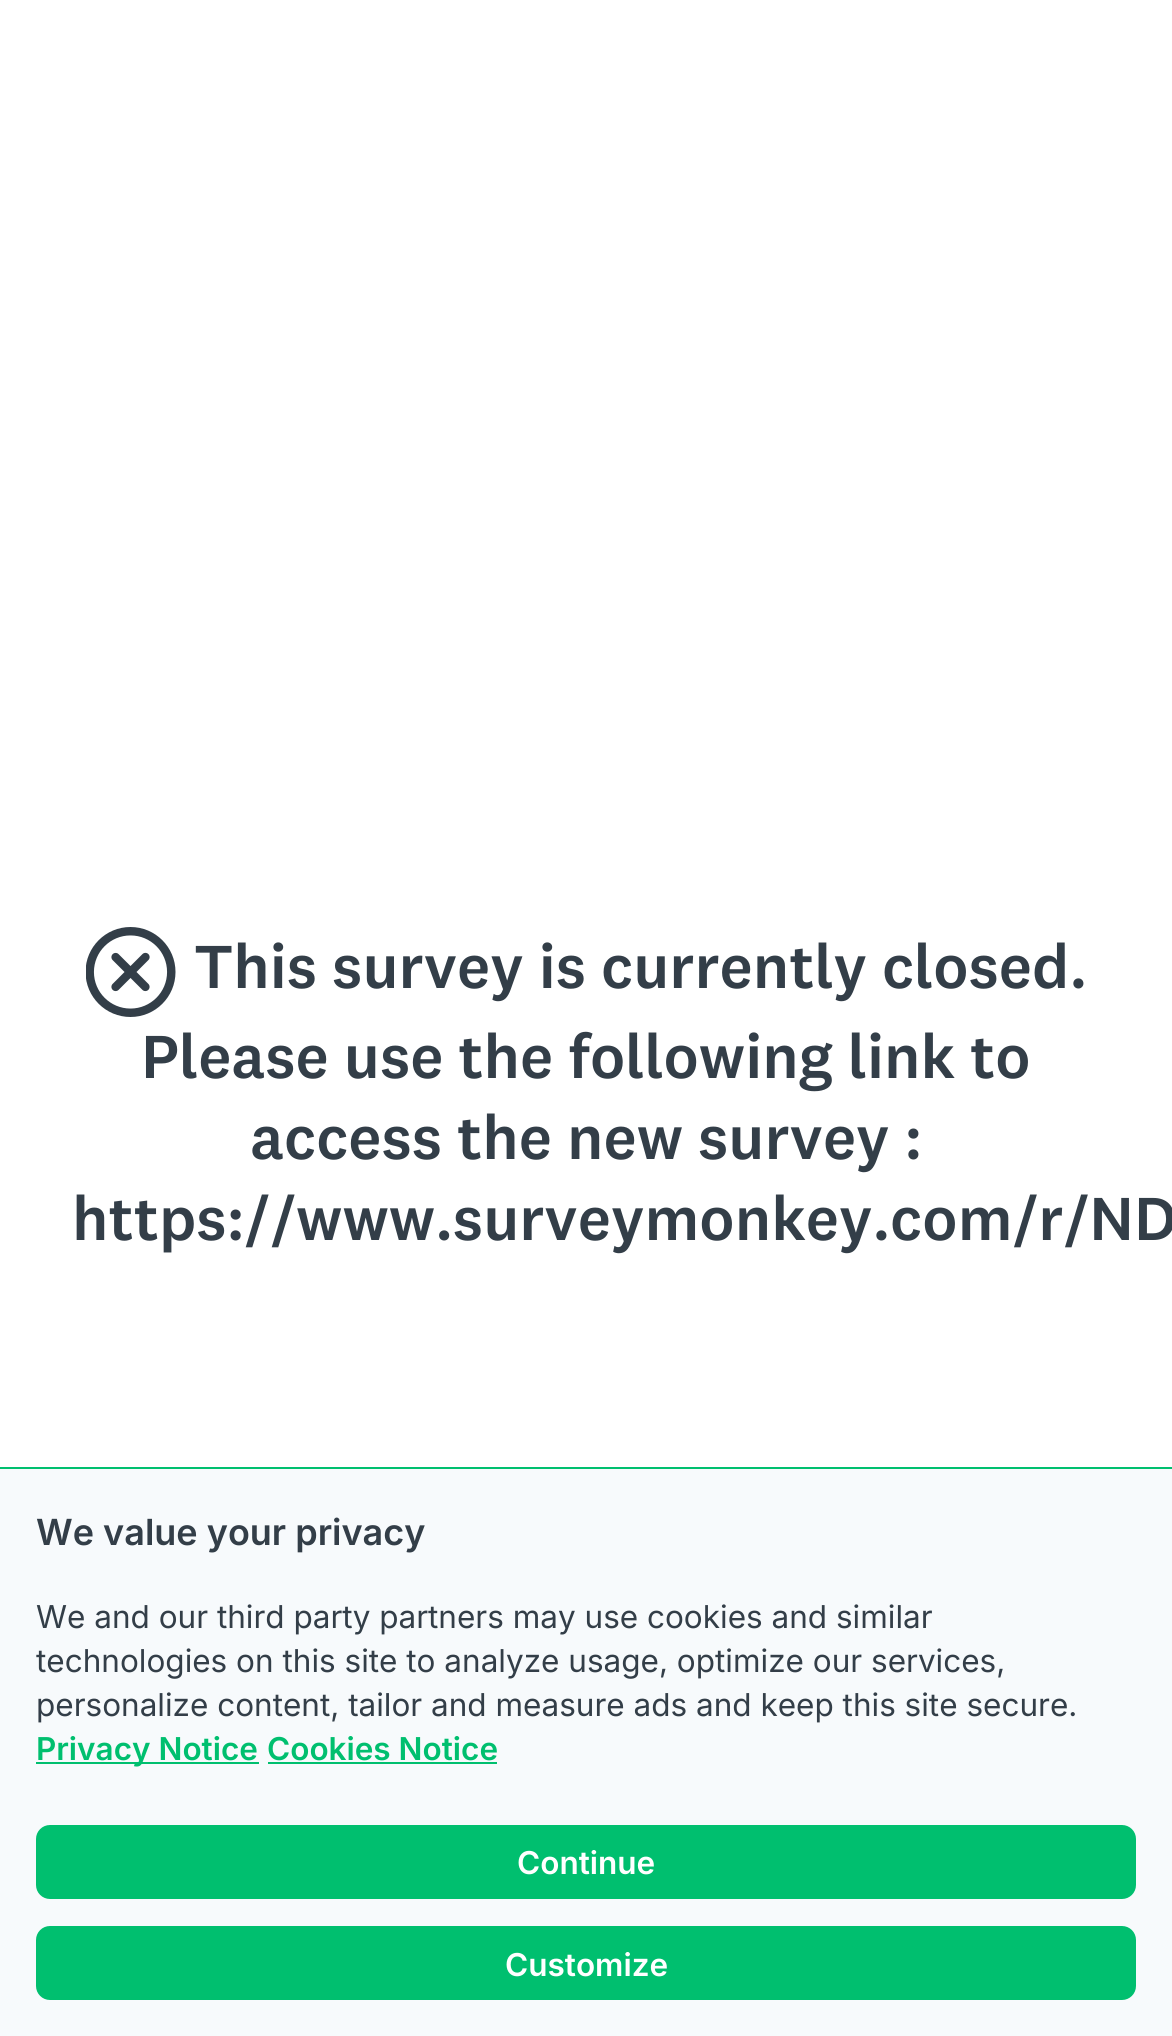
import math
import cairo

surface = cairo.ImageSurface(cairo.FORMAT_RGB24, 1172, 2036)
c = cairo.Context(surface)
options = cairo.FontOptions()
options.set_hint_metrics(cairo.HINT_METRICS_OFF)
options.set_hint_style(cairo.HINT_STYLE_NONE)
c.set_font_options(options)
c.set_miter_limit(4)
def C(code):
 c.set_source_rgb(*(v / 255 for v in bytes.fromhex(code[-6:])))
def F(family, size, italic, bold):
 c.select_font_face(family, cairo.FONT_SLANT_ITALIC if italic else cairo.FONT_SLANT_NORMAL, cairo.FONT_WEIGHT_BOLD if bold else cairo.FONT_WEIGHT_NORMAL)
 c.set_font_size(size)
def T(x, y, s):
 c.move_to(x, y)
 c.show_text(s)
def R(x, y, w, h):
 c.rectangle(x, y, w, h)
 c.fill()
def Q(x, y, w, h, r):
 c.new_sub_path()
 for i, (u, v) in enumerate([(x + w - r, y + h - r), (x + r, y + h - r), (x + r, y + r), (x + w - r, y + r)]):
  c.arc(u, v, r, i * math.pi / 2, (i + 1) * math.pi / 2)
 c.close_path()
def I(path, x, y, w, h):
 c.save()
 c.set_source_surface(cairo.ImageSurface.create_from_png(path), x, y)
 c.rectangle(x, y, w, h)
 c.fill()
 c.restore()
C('ffffff')
c.paint()
I('1.png',86,927,90,90)
F('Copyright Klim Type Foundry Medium',63,0,0)
C('333e48')
T(194,988,'This survey is currently closed.')
T(141,1078,'Please use the following link to')
T(250,1159,'access the new survey :')
T(72,1240,'https://www.surveymonkey.com/r/ND')
C('f7fafc')
R(0,1469,1172,567)
C('00bf6f')
R(0,1467,1172,2)
F('Inter SemiBold',36,0,0)
C('333e48')
T(36,1545,'We value your privacy')
F('Inter',31.5,0,0)
T(36,1628,'We and our third party partners may use cookies and similar')
T(36,1672,'technologies on this site to analyze usage, optimize our services,')
T(36,1716,'personalize content, tailor and measure ads and keep this site secure.')
C('00bf6f')
R(36,1762,223,2)
F('Inter SemiBold',31.5,0,0)
T(36,1760,'Privacy Notice')
T(267,1760,'Cookies Notice')
R(268,1762,229,2)
Q(36,1825,1100,74,14)
c.fill()
C('ffffff')
T(517,1874,'Continue')
C('00bf6f')
Q(36,1926,1100,74,14)
c.fill()
C('ffffff')
T(505,1976,'Customize')
surface.write_to_png('o.png')
